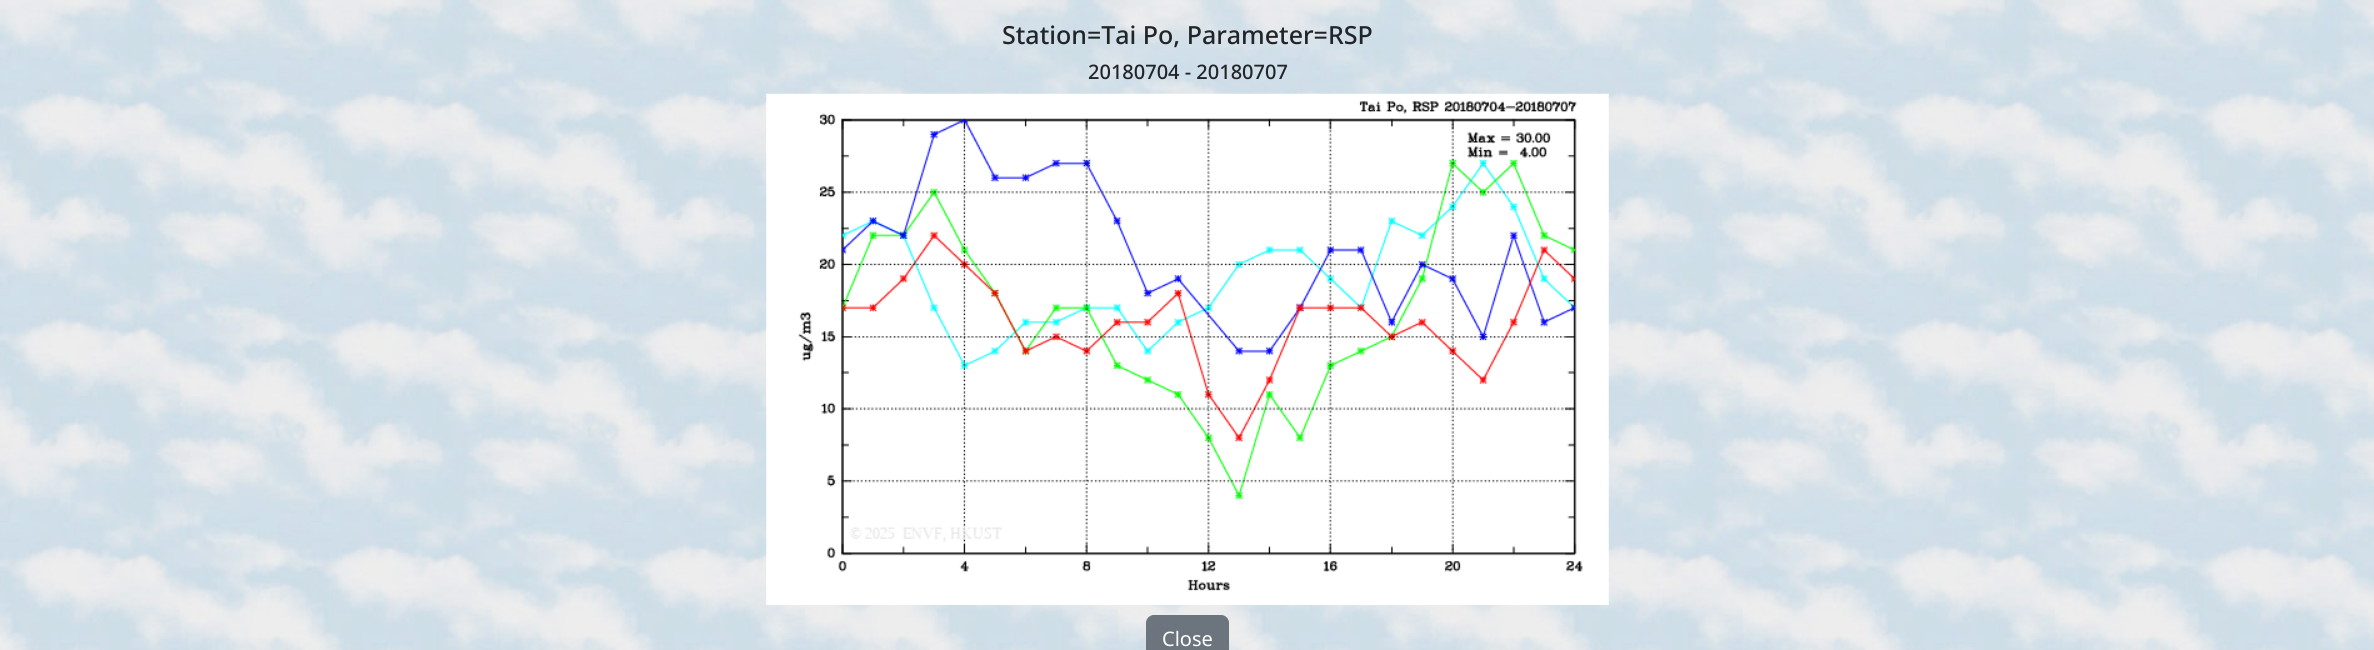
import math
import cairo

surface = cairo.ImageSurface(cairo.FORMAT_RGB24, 2374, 650)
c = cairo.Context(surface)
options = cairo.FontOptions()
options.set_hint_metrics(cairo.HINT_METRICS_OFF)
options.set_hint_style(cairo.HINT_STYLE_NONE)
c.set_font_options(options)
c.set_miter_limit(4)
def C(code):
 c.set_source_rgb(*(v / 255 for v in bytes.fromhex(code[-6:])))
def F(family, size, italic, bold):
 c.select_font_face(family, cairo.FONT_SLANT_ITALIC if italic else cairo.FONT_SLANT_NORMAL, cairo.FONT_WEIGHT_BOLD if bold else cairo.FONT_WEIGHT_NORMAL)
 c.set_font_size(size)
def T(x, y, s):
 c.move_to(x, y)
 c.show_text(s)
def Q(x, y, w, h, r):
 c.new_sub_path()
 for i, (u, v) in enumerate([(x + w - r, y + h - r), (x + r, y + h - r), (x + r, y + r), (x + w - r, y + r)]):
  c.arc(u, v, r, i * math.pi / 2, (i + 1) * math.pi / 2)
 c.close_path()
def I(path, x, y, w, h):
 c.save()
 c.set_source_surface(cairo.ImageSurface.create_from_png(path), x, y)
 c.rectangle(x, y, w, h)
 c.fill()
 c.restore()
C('ffffff')
c.paint()
I('1.png',0,0,2374,650)
F('Noto Sans Medium',25,0,0)
C('212529')
T(1002,44,'Station=Tai Po, Parameter=RSP')
F('Noto Sans Medium',20,0,0)
T(1088,79,'20180704 - 20180707')
I('2.png',766,93,843,512)
C('6c757d')
Q(1146.5,615.5,82,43,7.5)
c.fill_preserve()
c.set_line_width(1)
c.stroke()
F('Noto Sans',20,0,0)
C('ffffff')
T(1162,646,'Close')
surface.write_to_png('o.png')
